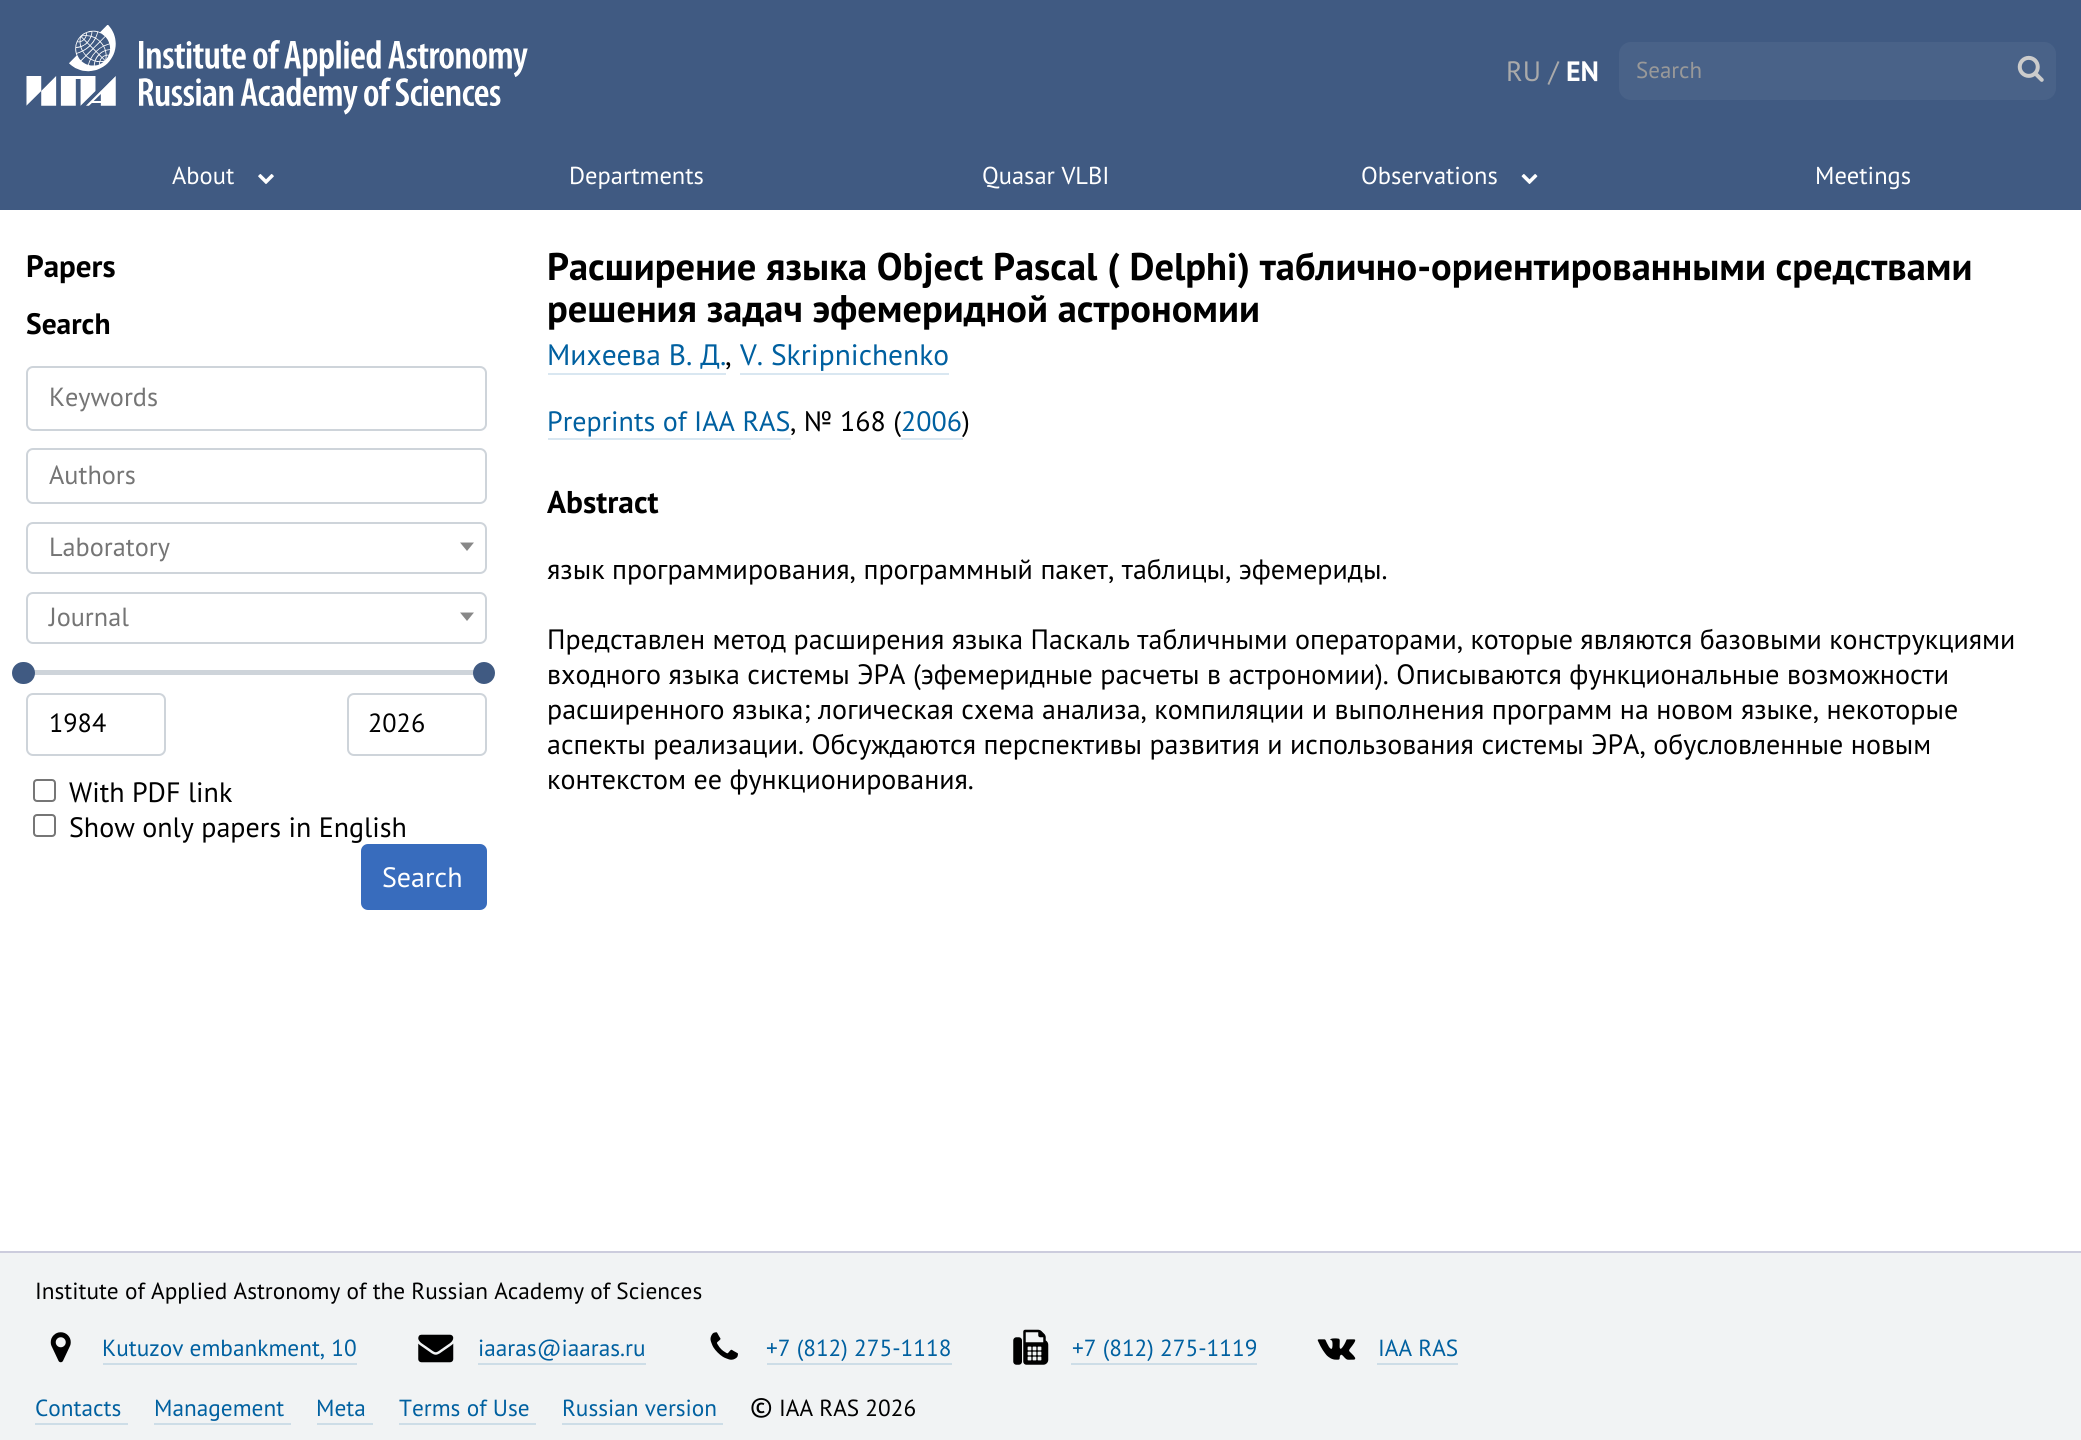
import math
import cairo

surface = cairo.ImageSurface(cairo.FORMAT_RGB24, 2081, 1440)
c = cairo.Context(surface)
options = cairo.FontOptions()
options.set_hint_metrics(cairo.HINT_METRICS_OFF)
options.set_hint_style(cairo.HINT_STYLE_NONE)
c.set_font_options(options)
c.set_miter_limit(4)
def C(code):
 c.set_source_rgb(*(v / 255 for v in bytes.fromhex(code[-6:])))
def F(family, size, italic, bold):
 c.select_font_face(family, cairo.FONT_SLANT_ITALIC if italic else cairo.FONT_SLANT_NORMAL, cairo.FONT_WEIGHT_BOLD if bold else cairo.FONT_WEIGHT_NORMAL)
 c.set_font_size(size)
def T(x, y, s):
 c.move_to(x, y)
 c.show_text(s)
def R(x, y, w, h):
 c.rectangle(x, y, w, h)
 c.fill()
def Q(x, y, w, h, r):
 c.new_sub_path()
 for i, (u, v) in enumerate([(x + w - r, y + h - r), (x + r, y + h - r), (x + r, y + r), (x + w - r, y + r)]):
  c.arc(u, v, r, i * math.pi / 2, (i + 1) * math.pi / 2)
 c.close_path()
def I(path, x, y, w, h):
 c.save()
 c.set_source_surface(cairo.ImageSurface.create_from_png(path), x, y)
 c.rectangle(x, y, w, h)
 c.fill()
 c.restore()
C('ffffff')
c.paint()
C('405a82')
R(0,0,2081,210)
I('1.png',26,25,502,90)
F('PT Sans',28,0,0)
C('aaaaaa')
T(1506,81,'RU /')
F('PT Sans',28,0,1)
C('ffffff')
T(1566,81,'EN')
C('496288')
Q(1619,42,437,58,12)
c.fill()
F('PT Sans',23,0,0)
C('999999')
T(1636,78,'Search')
I('2.png',2017,55,27,27)
F('PT Sans',24.5,0,0)
C('ffffff')
T(172,184,'About')
I('3.png',258,174,16,10)
T(569,184,'Departments')
T(982,184,'Quasar VLBI')
T(1361,184,'Observations')
I('4.png',1521,174,17,10)
T(1815,184,'Meetings')
F('PT Sans',31,0,1)
C('000000')
T(26,277,'Papers')
F('PT Sans',29.5,0,1)
T(26,334,'Search')
Q(27,367,459,63,6)
C('ced4da')
c.stroke()
F('PT Sans',26.25,0,0)
C('757575')
T(49,406,'Keywords')
Q(27,449,459,54,6)
C('ced4da')
c.stroke()
C('757575')
T(49,484,'Authors')
Q(27,523,459,50,6)
C('ced4da')
c.stroke()
C('757575')
T(49,556,'Laboratory')
C('888888')
c.new_path()
c.move_to(460,542.5)
c.line_to(474,542.5)
c.line_to(467,551)
c.close_path()
c.fill()
Q(27,593,459,50,6)
C('ced4da')
c.stroke()
C('757575')
T(49,626,'Journal')
C('888888')
c.new_path()
c.move_to(460,612.5)
c.line_to(474,612.5)
c.line_to(467,621)
c.close_path()
c.fill()
C('ced4da')
R(26,670,448,5)
C('405a82')
Q(12,662,23,22,11)
c.fill()
c.arc(484,673,11,0,2 * math.pi)
c.fill()
Q(27,694,138,61,6)
C('ced4da')
c.stroke()
C('000000')
T(49,732,'1984')
Q(348,694,138,61,6)
C('ced4da')
c.stroke()
C('000000')
T(368,732,'2026')
Q(34,780,21,21,3)
C('767676')
c.stroke()
F('PT Sans',28,0,0)
C('000000')
T(69,802,'With PDF link')
Q(34,815,21,21,3)
C('767676')
c.stroke()
C('000000')
T(69,837,'Show only papers in English')
C('386cbd')
Q(362,845,124,64,6)
c.fill_preserve()
c.stroke()
C('ffffff')
T(382,887,'Search')
F('PT Sans',38.5,0,1)
C('000000')
T(547,280,'Расширение языка Object Pascal ( Delphi) таблично-ориентированными средствами')
T(547,322,'решения задач эфемеридной астрономии')
F('PT Sans',29.5,0,0)
C('0060a0')
T(547,365,'Михеева В. Д.')
C('d9e7f1')
R(548,373,178,2)
C('000000')
T(725,365,',')
C('0060a0')
T(740,365,'V. Skripnichenko')
C('d9e7f1')
R(740,373,209,2)
F('PT Sans',28,0,0)
C('0060a0')
T(547,431,'Preprints of IAA RAS')
C('d9e7f1')
R(548,438,243,2)
C('000000')
T(790,431,', № 168 (')
C('0060a0')
T(901,431,'2006')
C('d9e7f1')
R(901,438,62,2)
C('000000')
T(962,431,')')
F('PT Sans',31.5,0,1)
T(547,513,'Abstract')
F('PT Sans',28,0,0)
T(547,579,'язык программирования, программный пакет, таблицы, эфемериды.')
T(547,649,'Представлен метод расширения языка Паскаль табличными операторами, которые являются базовыми конструкциями')
T(547,684,'входного языка системы ЭРА (эфемеридные расчеты в астрономии). Описываются функциональные возможности')
T(547,719,'расширенного языка; логическая схема анализа, компиляции и выполнения программ на новом языке, некоторые')
T(547,754,'аспекты реализации. Обсуждаются перспективы развития и использования системы ЭРА, обусловленные новым')
T(547,789,'контекстом ее функционирования.')
C('f1f3f4')
R(0,1253,2081,187)
C('ccccdd')
R(0,1251,2081,2)
F('PT Sans',23.3,0,0)
C('000000')
T(35,1299,'Institute of Applied Astronomy of the Russian Academy of Sciences')
I('5.png',50,1332,21,31)
C('0060a0')
T(102,1356,'Kutuzov embankment, 10')
C('cddde7')
R(103,1363,254,2)
I('6.png',418,1334,36,29)
C('0060a0')
T(478,1356,'iaaras@iaaras.ru')
C('cddde7')
R(478,1363,168,2)
I('7.png',710,1332,28,28)
C('0060a0')
T(766,1356,'+7 (812) 275-1118')
C('cddde7')
R(767,1363,185,2)
I('8.png',1013,1329,36,36)
C('0060a0')
T(1072,1356,'+7 (812) 275-1119')
C('cddde7')
R(1071,1363,186,2)
I('9.png',1317,1338,39,22)
C('0060a0')
T(1378,1356,'IAA RAS')
C('cddde7')
R(1377,1363,81,2)
C('0060a0')
T(35,1416,'Contacts')
C('cddde7')
R(35,1423,93,2)
C('0060a0')
T(154,1416,'Management')
C('cddde7')
R(154,1423,137,2)
C('0060a0')
T(316,1416,'Meta')
C('cddde7')
R(317,1423,56,2)
C('0060a0')
T(399,1416,'Terms of Use')
C('cddde7')
R(399,1423,137,2)
C('0060a0')
T(562,1416,'Russian version')
C('cddde7')
R(562,1423,161,2)
F('PT Sans',28,0,0)
C('000000')
T(750,1416,'©')
F('PT Sans',23.3,0,0)
T(779,1416,'IAA RAS 2026')
surface.write_to_png('o.png')
